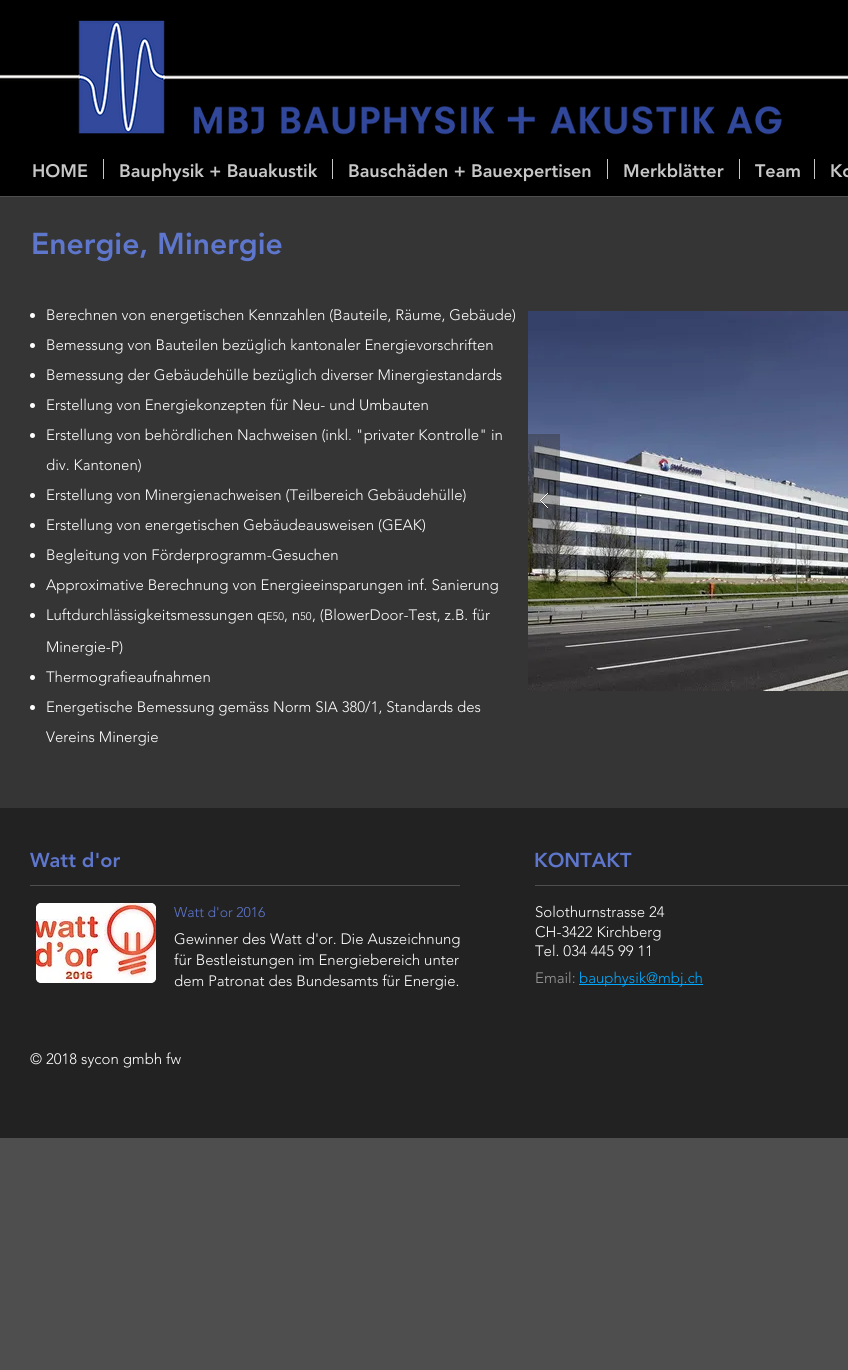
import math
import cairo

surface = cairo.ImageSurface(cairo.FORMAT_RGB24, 848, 1370)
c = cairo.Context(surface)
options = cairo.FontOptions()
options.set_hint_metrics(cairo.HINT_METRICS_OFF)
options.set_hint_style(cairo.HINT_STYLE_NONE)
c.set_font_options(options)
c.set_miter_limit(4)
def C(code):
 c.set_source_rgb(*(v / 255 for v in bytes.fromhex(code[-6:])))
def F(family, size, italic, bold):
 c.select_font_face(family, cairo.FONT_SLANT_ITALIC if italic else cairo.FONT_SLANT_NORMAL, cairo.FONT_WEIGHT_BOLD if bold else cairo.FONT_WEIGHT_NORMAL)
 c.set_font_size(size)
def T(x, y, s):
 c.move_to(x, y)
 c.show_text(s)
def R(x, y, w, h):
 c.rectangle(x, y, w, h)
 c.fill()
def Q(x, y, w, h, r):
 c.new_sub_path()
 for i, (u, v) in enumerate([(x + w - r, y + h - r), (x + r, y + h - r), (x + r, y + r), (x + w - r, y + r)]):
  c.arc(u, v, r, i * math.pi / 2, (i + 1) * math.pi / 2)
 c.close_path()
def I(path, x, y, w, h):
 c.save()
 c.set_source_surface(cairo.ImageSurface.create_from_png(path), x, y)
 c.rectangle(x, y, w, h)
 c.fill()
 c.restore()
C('4e4e4e')
c.paint()
C('000000')
R(0,0,848,196)
I('1.png',0,20,848,115)
F('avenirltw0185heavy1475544 Black',18,0,0)
C('c7c7c7')
T(32,177,'HOME')
R(103,159,1,20)
T(119,177,'Bauphysik + Bauakustik')
R(332,159,1,20)
T(348,177,'Bauschäden + Bauexpertisen')
R(607,159,1,20)
T(623,177,'Merkblätter')
R(739,159,1,20)
T(755,177,'Team')
R(814,159,1,20)
T(830,177,'Ko')
C('353535')
R(0,197,848,611)
F('avenirltw0185heavy1475544 Black',30,0,0)
C('5e76cc')
T(31,254,'Energie, Minergie')
C('ffffff')
c.new_path()
c.arc(32.5,315.5,2.5,0,2 * math.pi)
c.fill()
F('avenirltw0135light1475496 Light',15,0,0)
T(46,320,'Berechnen von energetischen Kennzahlen (Bauteile, Räume, Gebäude)')
c.new_path()
c.arc(32.5,345.5,2.5,0,2 * math.pi)
c.fill()
T(46,350,'Bemessung von Bauteilen bezüglich kantonaler Energievorschriften')
c.new_path()
c.arc(32.5,375.5,2.5,0,2 * math.pi)
c.fill()
T(46,380,'Bemessung der Gebäudehülle bezüglich diverser Minergiestandards')
c.new_path()
c.arc(32.5,405.5,2.5,0,2 * math.pi)
c.fill()
T(46,410,'Erstellung von Energiekonzepten für Neu- und Umbauten')
c.new_path()
c.arc(32.5,435.5,2.5,0,2 * math.pi)
c.fill()
T(46,440,'Erstellung von behördlichen Nachweisen (inkl. "privater Kontrolle" in')
T(46,470,'div. Kantonen)')
c.new_path()
c.arc(32.5,495.5,2.5,0,2 * math.pi)
c.fill()
T(46,500,'Erstellung von Minergienachweisen (Teilbereich Gebäudehülle)')
c.new_path()
c.arc(32.5,525.5,2.5,0,2 * math.pi)
c.fill()
T(46,530,'Erstellung von energetischen Gebäudeausweisen (GEAK)')
c.new_path()
c.arc(32.5,555.5,2.5,0,2 * math.pi)
c.fill()
T(46,560,'Begleitung von Förderprogramm-Gesuchen')
c.new_path()
c.arc(32.5,585.5,2.5,0,2 * math.pi)
c.fill()
T(46,590,'Approximative Berechnung von Energieeinsparungen inf. Sanierung')
c.new_path()
c.arc(32.5,615.5,2.5,0,2 * math.pi)
c.fill()
T(46,620,'Luftdurchlässigkeitsmessungen q')
F('avenirltw0135light1475496 Light',11,0,0)
T(266,620,'E50')
F('avenirltw0135light1475496 Light',15,0,0)
T(284,620,', n')
F('avenirltw0135light1475496 Light',11,0,0)
T(300,620,'50')
F('avenirltw0135light1475496 Light',15,0,0)
T(312,620,', (BlowerDoor-Test, z.B. für')
T(46,652,'Minergie-P)')
c.new_path()
c.arc(32.5,677.5,2.5,0,2 * math.pi)
c.fill()
T(46,682,'Thermografieaufnahmen')
c.new_path()
c.arc(32.5,707.5,2.5,0,2 * math.pi)
c.fill()
T(46,712,'Energetische Bemessung gemäss Norm SIA 380/1, Standards des')
T(46,742,'Vereins Minergie')
I('2.png',528,311,320,380)
c.set_source_rgba(0.184,0.18,0.18,0.41)
R(528,434,32,134)
I('3.png',540,493,8,16)
C('222222')
R(0,808,848,330)
F('avenirltw0185heavy1475544 Black',20,0,0)
C('5e76cc')
T(30,867,'Watt d\'or')
T(534,867,'KONTAKT')
C('4e4e4e')
R(30,885,430,1)
R(535,885,313,1)
C('ffffff')
Q(36,903,120,80,5)
c.fill()
I('4.png',36,903,120,80)
F('avenirltw0135light1475496 Light',14,0,0)
C('5e76cc')
T(174,917,'Watt d\'or 2016')
F('avenirltw0135light1475496 Light',15,0,0)
C('ffffff')
T(174,944,'Gewinner des Watt d\'or. Die Auszeichnung')
T(174,965,'für Bestleistungen im Energiebereich unter')
T(174,986,'dem Patronat des Bundesamts für Energie.')
T(535,917,'Solothurnstrasse 24')
T(535,937,'CH-3422 Kirchberg')
T(535,956,'Tel. 034 445 99 11')
C('9a9a9a')
T(535,983,'Email:')
C('00a9ff')
R(579,984,124,1)
T(579,983,'bauphysik@mbj.ch')
C('ffffff')
T(30,1064,'© 2018 sycon gmbh fw')
surface.write_to_png('o.png')
